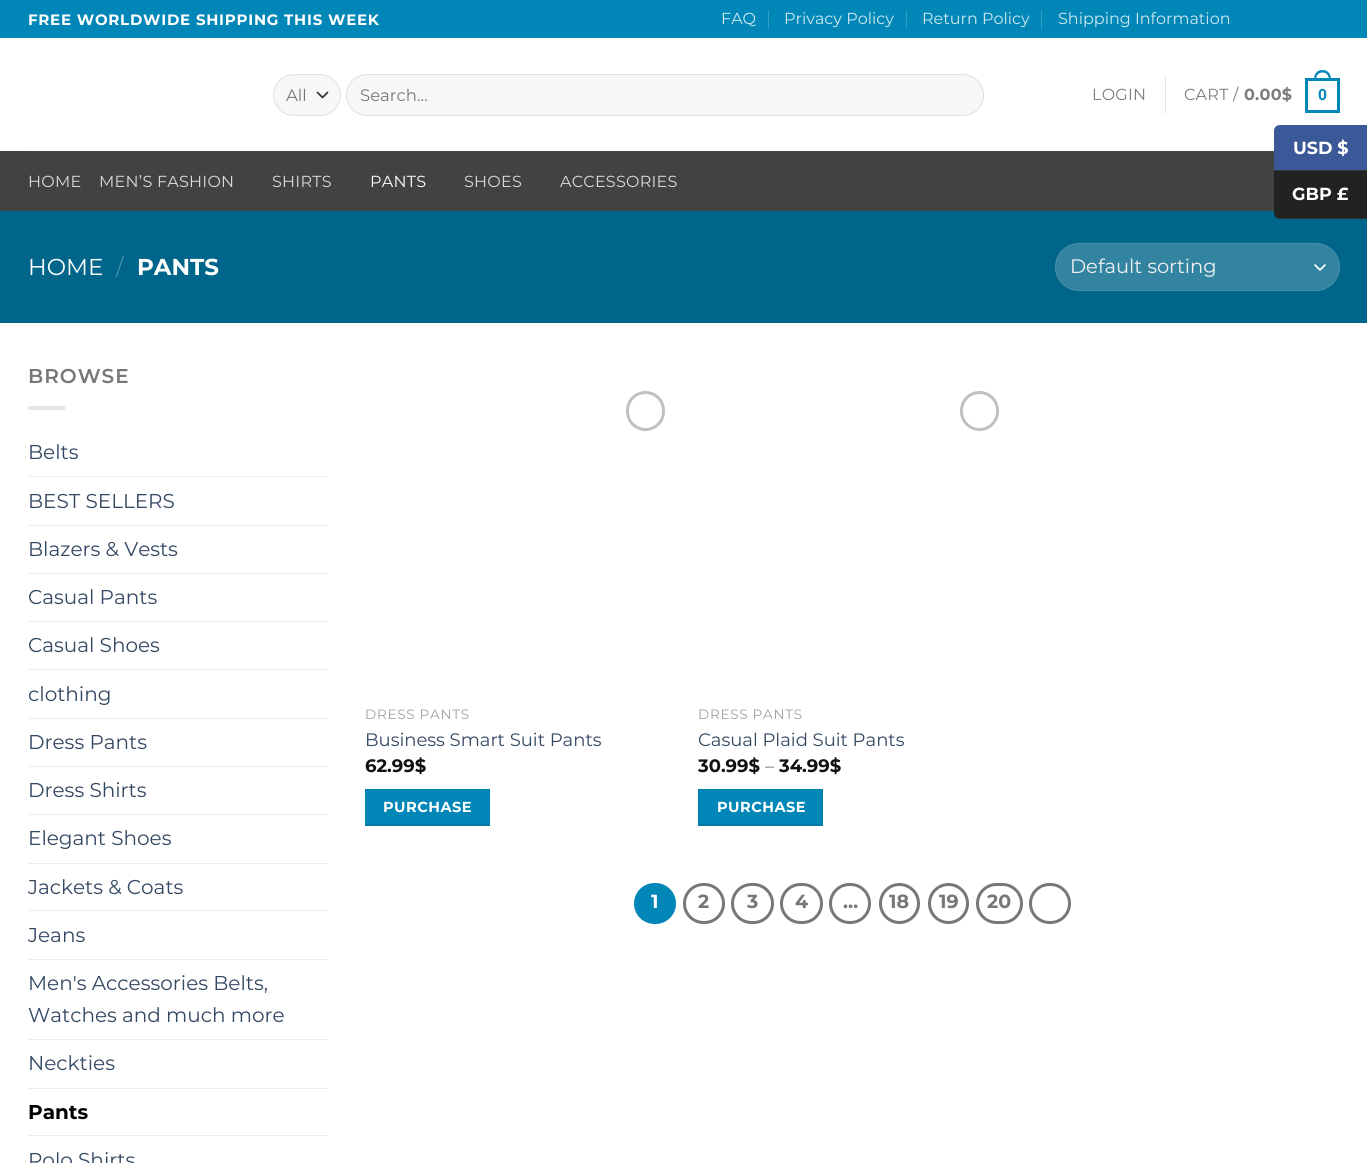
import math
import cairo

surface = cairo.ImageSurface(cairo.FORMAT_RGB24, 1367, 1163)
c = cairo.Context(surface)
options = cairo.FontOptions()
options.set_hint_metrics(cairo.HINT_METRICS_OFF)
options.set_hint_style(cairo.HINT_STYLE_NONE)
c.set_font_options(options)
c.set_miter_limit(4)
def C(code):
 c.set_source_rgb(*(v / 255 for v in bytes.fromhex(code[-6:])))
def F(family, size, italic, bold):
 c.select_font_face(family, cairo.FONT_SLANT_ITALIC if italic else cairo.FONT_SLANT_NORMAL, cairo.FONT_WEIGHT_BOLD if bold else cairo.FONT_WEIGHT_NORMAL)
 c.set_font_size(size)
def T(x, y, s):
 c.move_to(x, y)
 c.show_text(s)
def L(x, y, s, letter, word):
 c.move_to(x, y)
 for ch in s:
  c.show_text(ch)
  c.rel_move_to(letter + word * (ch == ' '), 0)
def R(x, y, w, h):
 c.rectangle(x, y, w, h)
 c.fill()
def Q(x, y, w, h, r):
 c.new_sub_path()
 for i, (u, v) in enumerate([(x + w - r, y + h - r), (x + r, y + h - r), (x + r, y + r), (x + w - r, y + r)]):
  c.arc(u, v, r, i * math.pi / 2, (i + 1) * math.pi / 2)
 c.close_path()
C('ffffff')
c.paint()
C('0087b7')
R(0,0,1367,38)
F('Montserrat',15,0,1)
C('ffffff')
L(28,25,'FREE WORLDWIDE SHIPPING THIS WEEK',.75,0)
F('Montserrat',16,0,0)
C('cce7f1')
T(721,24,'FAQ')
C('339fc5')
R(768,10,1,19)
C('cce7f1')
T(784,24,'Privacy Policy')
C('339fc5')
R(906,10,1,19)
C('cce7f1')
T(922,24,'Return Policy')
C('339fc5')
R(1041,10,1,19)
C('cce7f1')
T(1058,24,'Shipping Information')
C('f7f7f7')
Q(273,74,68,42,21)
c.fill()
c.new_path()
c.move_to(317.5,92.5)
c.line_to(322.5,97.5)
c.line_to(327.5,92.5)
C('333333')
c.set_line_width(1.7)
c.set_line_cap(cairo.LINE_CAP_ROUND)
c.set_line_join(cairo.LINE_JOIN_ROUND)
c.stroke()
Q(273.5,74.5,67,41,20.5)
c.set_source_rgba(0,0,0,0.09)
c.set_line_width(1)
c.set_line_cap(cairo.LINE_CAP_BUTT)
c.set_line_join(cairo.LINE_JOIN_MITER)
c.stroke()
F('Montserrat',16.5,0,0)
C('777777')
T(286,101,'All')
C('f7f7f7')
Q(346,74,638,42,21)
c.fill()
Q(346.5,74.5,637,41,20.5)
c.set_source_rgba(0,0,0,0.09)
c.stroke()
C('777777')
T(360,101,'Search…')
F('Montserrat',16,0,0)
C('7d7d7d')
L(1092,100,'LOGIN',.25,0)
C('e6e6e6')
R(1165,76,1,38)
C('7d7d7d')
L(1184,100,'CART /',.25,0)
F('Montserrat',16,0,1)
L(1244,100,'0.00$',.25,0)
c.rectangle(1306.5,79.5,32,32)
C('0087b7')
c.set_line_width(3)
c.stroke()
c.set_fill_rule(cairo.FILL_RULE_EVEN_ODD)
c.new_path()
c.move_to(1322.5,70)
c.curve_to(1328.5,70,1331,74.5,1331,80)
c.line_to(1314,80)
c.curve_to(1314,74.5,1316.5,70,1322.5,70)
c.close_path()
c.move_to(1322.5,72.5)
c.curve_to(1327,72.5,1329,76,1329,80)
c.line_to(1316,80)
c.curve_to(1316,76,1318,72.5,1322.5,72.5)
c.close_path()
c.fill()
F('Liberation Sans',16,0,1)
L(1318,100,'0',.25,0)
C('424242')
R(0,151,1274,60)
C('474747')
R(28,151,1246,1)
F('Montserrat',16,0,0)
C('d9d9d9')
L(28,187,'HOME',.25,0)
L(99,187,'MEN’S FASHION',.25,0)
L(272,187,'SHIRTS',.25,0)
C('ffffff')
L(370,187,'PANTS',.25,0)
C('d9d9d9')
L(464,187,'SHOES',.25,0)
L(560,187,'ACCESSORIES',.25,0)
C('00658a')
R(0,211,1367,112)
F('Montserrat',23,0,0)
C('ffffff')
T(28,275,'HOME')
F('Montserrat Light',23,0,0)
C('599bb3')
T(116,275,'/')
F('Montserrat',23,0,1)
C('ffffff')
T(137,275,'PANTS')
C('3384a1')
Q(1055,243,285,48,24)
c.fill()
c.new_path()
c.move_to(1315,265)
c.line_to(1320,270)
c.line_to(1325,265)
C('ffffff')
c.set_line_width(1.7)
c.set_line_cap(cairo.LINE_CAP_ROUND)
c.set_line_join(cairo.LINE_JOIN_ROUND)
c.stroke()
Q(1055.5,243.5,284,47,23.5)
c.set_source_rgba(1,1,1,0.09)
c.set_line_width(1)
c.set_line_cap(cairo.LINE_CAP_BUTT)
c.set_line_join(cairo.LINE_JOIN_MITER)
c.stroke()
F('Montserrat',19.5,0,0)
C('f1f1f1')
T(1070,273,'Default sorting')
F('Montserrat SemiBold',20,0,0)
C('777777')
L(28,383,'BROWSE',1,0)
C('e6e6e6')
R(28,406,37,4)
F('Montserrat',20,0,0)
C('334862')
T(28,459,'Belts')
C('ececec')
R(28,476,300,1)
C('334862')
T(28,508,'BEST SELLERS')
C('ececec')
R(28,525,300,1)
C('334862')
T(28,556,'Blazers & Vests')
C('ececec')
R(28,573,300,1)
C('334862')
T(28,604,'Casual Pants')
C('ececec')
R(28,621,300,1)
C('334862')
T(28,652,'Casual Shoes')
C('ececec')
R(28,669,300,1)
C('334862')
T(28,701,'clothing')
C('ececec')
R(28,718,300,1)
C('334862')
T(28,749,'Dress Pants')
C('ececec')
R(28,766,300,1)
C('334862')
T(28,797,'Dress Shirts')
C('ececec')
R(28,814,300,1)
C('334862')
T(28,845,'Elegant Shoes')
C('ececec')
R(28,863,300,1)
C('334862')
T(28,894,'Jackets & Coats')
C('ececec')
R(28,910,300,1)
C('334862')
T(28,942,'Jeans')
C('ececec')
R(28,959,300,1)
C('334862')
T(28,990,'Men\'s Accessories Belts,')
T(28,1022,'Watches and much more')
C('ececec')
R(28,1039,300,1)
C('334862')
T(28,1070,'Neckties')
C('ececec')
R(28,1088,300,1)
F('Montserrat',20,0,1)
C('000000')
T(28,1119,'Pants')
C('ececec')
R(28,1135,300,1)
F('Montserrat',20,0,0)
C('334862')
T(28,1167,'Polo Shirts')
Q(627.5,392.5,36,37,18)
C('c0c0c0')
c.set_line_width(3)
c.stroke()
F('Montserrat',13.5,0,0)
C('a0a0a0')
L(365,719,'DRESS PANTS',.75,0)
F('Montserrat',18,0,0)
C('334862')
T(365,746,'Business Smart Suit Pants')
F('Montserrat',18,0,1)
C('111111')
T(365,772,'62.99$')
C('0087b7')
R(366,790,123,34)
c.rectangle(365.5,789.5,124,36)
C('0080ae')
c.set_line_width(1)
c.stroke()
F('Montserrat',14.5,0,1)
C('ffffff')
L(383,812,'PURCHASE',.5,0)
c.save()
c.set_fill_rule(cairo.FILL_RULE_WINDING)
c.rectangle(366,790,123,35)
c.clip()
C('00739c')
c.set_fill_rule(cairo.FILL_RULE_EVEN_ODD)
c.new_path()
c.move_to(242,666)
c.line_to(612,666)
c.line_to(612,949)
c.line_to(242,949)
c.close_path()
c.move_to(366,789)
c.line_to(489,789)
c.line_to(489,824)
c.line_to(366,824)
c.close_path()
c.fill()
c.restore()
Q(961.5,392.5,36,37,18)
C('c0c0c0')
c.set_line_width(3)
c.stroke()
F('Montserrat',13.5,0,0)
C('a0a0a0')
L(698,719,'DRESS PANTS',.75,0)
F('Montserrat',18,0,0)
C('334862')
T(698,746,'Casual Plaid Suit Pants')
F('Montserrat',18,0,1)
C('111111')
T(698,772,'30.99$')
F('Montserrat',18,0,0)
C('777777')
T(765,772,'–')
F('Montserrat',18,0,1)
C('111111')
T(779,772,'34.99$')
C('0087b7')
c.rectangle(698.5,789.5,124,36)
c.fill_preserve()
C('0080ae')
c.set_line_width(1)
c.stroke()
F('Montserrat',14.5,0,1)
C('ffffff')
L(717,812,'PURCHASE',.5,0)
c.save()
c.set_fill_rule(cairo.FILL_RULE_WINDING)
c.rectangle(699,790,122,35)
c.clip()
C('00739c')
c.set_fill_rule(cairo.FILL_RULE_EVEN_ODD)
c.new_path()
c.move_to(575,666)
c.line_to(945,666)
c.line_to(945,949)
c.line_to(575,949)
c.close_path()
c.move_to(699,789)
c.line_to(821,789)
c.line_to(821,824)
c.line_to(699,824)
c.close_path()
c.fill()
c.restore()
C('0087b7')
Q(635.5,884.5,39,38,19)
c.fill_preserve()
c.set_line_width(3)
c.stroke()
F('Montserrat',19,0,1)
C('ffffff')
T(651,908,'1')
Q(684.5,884.5,39,38,19)
C('777777')
c.stroke()
T(698,908,'2')
Q(732.5,884.5,40,38,19)
c.stroke()
T(747,908,'3')
Q(781.5,884.5,40,38,19)
c.stroke()
T(795,908,'4')
Q(830.5,884.5,39,38,19)
c.stroke()
T(843,908,'…')
c.new_path()
c.arc(899.5,903.5,19,0,2 * math.pi)
c.stroke()
T(889,908,'18')
c.new_path()
c.arc(948.5,903.5,19,0,2 * math.pi)
c.stroke()
T(939,908,'19')
Q(977.5,884.5,44,38,19)
c.stroke()
T(987,908,'20')
Q(1030.5,884.5,39,38,19)
c.stroke()
C('3b5998')
c.new_path()
c.move_to(1280,125)
c.line_to(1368,125)
c.line_to(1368,171)
c.line_to(1274,171)
c.line_to(1274,131)
c.curve_to(1274,127.5,1276.5,125,1280,125)
c.close_path()
c.fill()
C('333333')
R(1274,170,93,1)
F('Montserrat',17.5,0,1)
C('ffffff')
T(1293,154,'USD $')
C('222222')
c.new_path()
c.move_to(1274,171)
c.line_to(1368,171)
c.line_to(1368,219)
c.line_to(1280,219)
c.curve_to(1276.5,219,1274,216.5,1274,213)
c.close_path()
c.fill()
C('333333')
R(1278,218,89,1)
C('ffffff')
T(1292,200,'GBP £')
surface.write_to_png('o.png')
